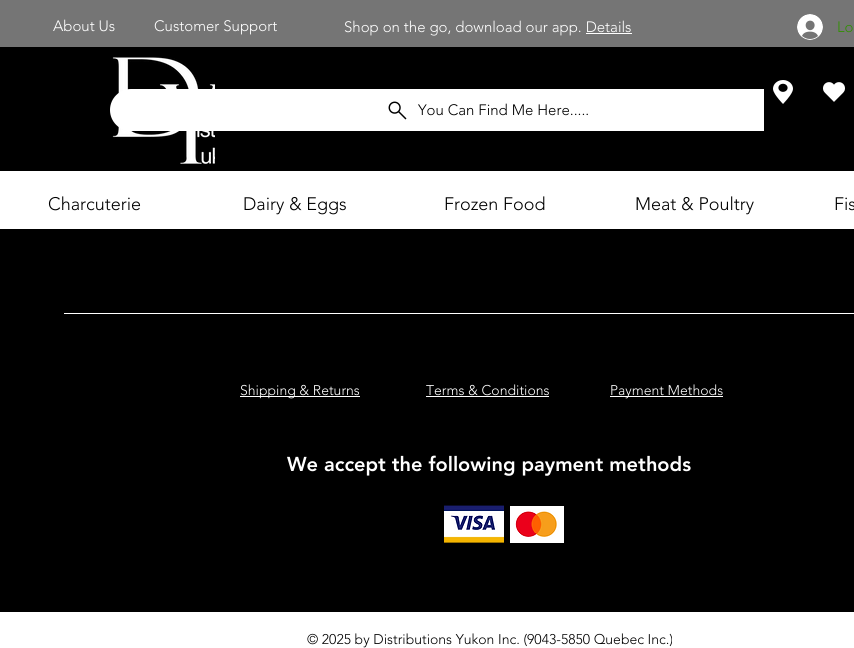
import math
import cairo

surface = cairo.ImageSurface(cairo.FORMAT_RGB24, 854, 648)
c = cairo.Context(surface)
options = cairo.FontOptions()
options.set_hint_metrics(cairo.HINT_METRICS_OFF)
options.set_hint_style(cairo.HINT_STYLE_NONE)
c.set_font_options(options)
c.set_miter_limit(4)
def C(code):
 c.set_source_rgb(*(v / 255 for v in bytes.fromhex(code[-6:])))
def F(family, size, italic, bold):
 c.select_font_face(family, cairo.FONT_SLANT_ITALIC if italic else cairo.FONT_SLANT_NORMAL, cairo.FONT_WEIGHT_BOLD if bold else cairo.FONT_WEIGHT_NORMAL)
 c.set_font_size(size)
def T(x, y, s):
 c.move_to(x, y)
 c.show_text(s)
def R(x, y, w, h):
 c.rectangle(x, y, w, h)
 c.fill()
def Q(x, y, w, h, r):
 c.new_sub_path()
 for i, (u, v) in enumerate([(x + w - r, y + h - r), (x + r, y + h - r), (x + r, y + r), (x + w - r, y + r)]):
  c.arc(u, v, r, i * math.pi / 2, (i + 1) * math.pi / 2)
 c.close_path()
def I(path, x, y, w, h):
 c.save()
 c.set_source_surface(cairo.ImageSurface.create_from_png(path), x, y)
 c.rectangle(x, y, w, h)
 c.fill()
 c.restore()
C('000000')
c.paint()
C('757575')
R(0,0,854,47)
F('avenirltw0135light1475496 Light',15,0,0)
C('ffffff')
T(53,31,'About Us')
T(154,31,'Customer Support')
T(344,32,'Shop on the go, download our app. Details')
R(586,33,46,1)
I('1.png',797,14,26,26)
C('318f03')
T(837,32,'Lo')
I('2.png',112,57,103,107)
C('ffffff')
Q(110,89,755,42,21)
c.fill()
I('3.png',388,101,19,19)
C('000000')
T(418,115,'You Can Find Me Here.....')
R(764,89,90,42)
I('4.png',773,80,20,24)
I('5.png',823,82,22,20)
C('ffffff')
R(0,171,854,58)
F('avenirltw0135light1475496 Light',18,0,0)
C('000000')
T(48,210,'Charcuterie')
T(243,210,'Dairy & Eggs')
T(444,210,'Frozen Food')
T(635,210,'Meat & Poultry')
T(834,210,'Fis')
C('ffffff')
R(64,313,790,1)
R(240,396,120,1)
F('avenirltw0135light1475496 Light',14,0,0)
T(240,395,'Shipping & Returns')
T(426,395,'Terms & Conditions')
R(426,396,123,1)
R(610,396,113,1)
T(610,395,'Payment Methods')
F('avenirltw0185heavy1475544 Black',20,0,0)
T(287,471,'We accept the following payment methods')
I('6.png',444,505,60,38)
I('7.png',510,506,54,37)
R(0,612,854,36)
F('avenirltw0135light1475496 Light',14,0,0)
C('000000')
T(307,644,'© 2025 by Distributions Yukon Inc. (9043-5850 Quebec Inc.)')
surface.write_to_png('o.png')
